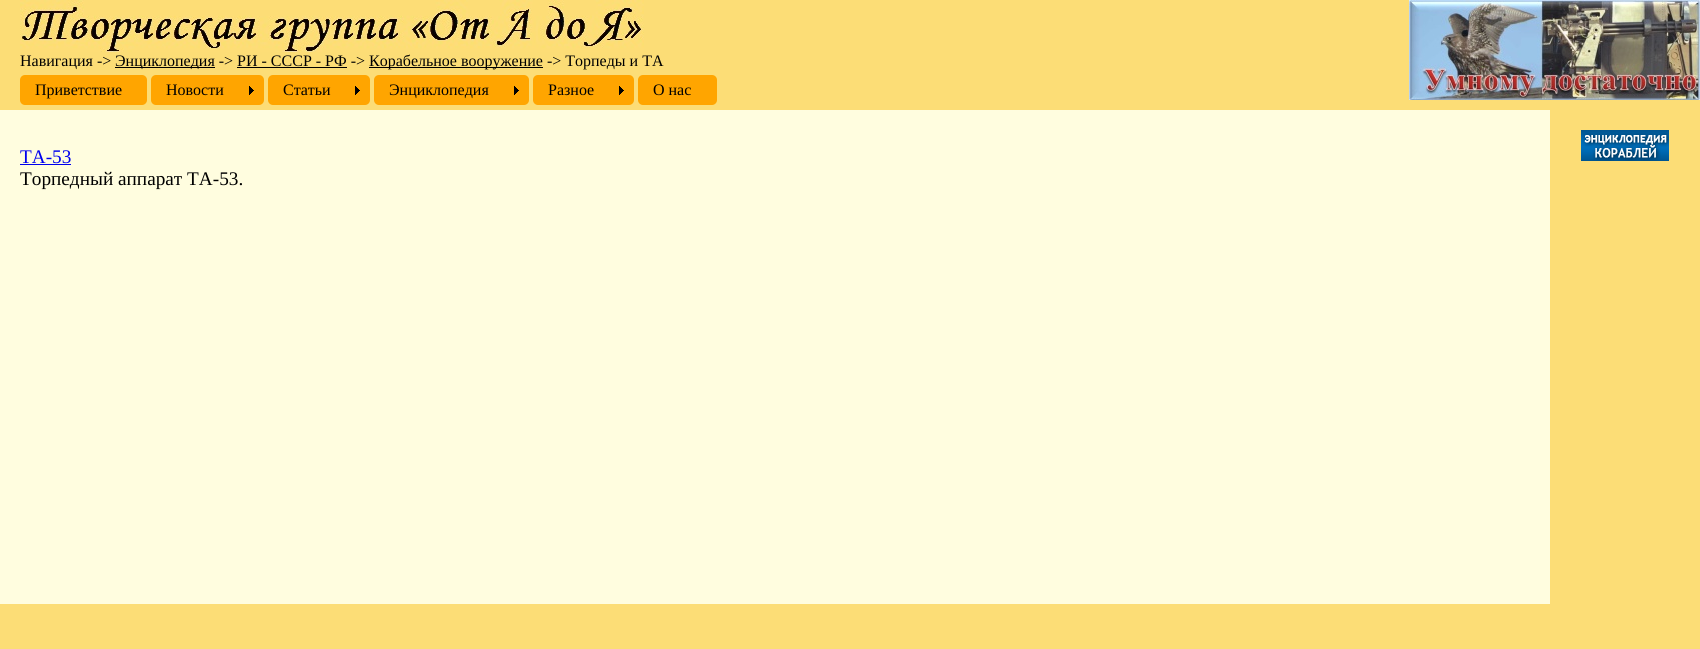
import math
import cairo

surface = cairo.ImageSurface(cairo.FORMAT_RGB24, 1700, 649)
c = cairo.Context(surface)
options = cairo.FontOptions()
options.set_hint_metrics(cairo.HINT_METRICS_OFF)
options.set_hint_style(cairo.HINT_STYLE_NONE)
c.set_font_options(options)
c.set_miter_limit(4)
def C(code):
 c.set_source_rgb(*(v / 255 for v in bytes.fromhex(code[-6:])))
def F(family, size, italic, bold):
 c.select_font_face(family, cairo.FONT_SLANT_ITALIC if italic else cairo.FONT_SLANT_NORMAL, cairo.FONT_WEIGHT_BOLD if bold else cairo.FONT_WEIGHT_NORMAL)
 c.set_font_size(size)
def T(x, y, s):
 c.move_to(x, y)
 c.show_text(s)
def R(x, y, w, h):
 c.rectangle(x, y, w, h)
 c.fill()
def Q(x, y, w, h, r):
 c.new_sub_path()
 for i, (u, v) in enumerate([(x + w - r, y + h - r), (x + r, y + h - r), (x + r, y + r), (x + w - r, y + r)]):
  c.arc(u, v, r, i * math.pi / 2, (i + 1) * math.pi / 2)
 c.close_path()
def I(path, x, y, w, h):
 c.save()
 c.set_source_surface(cairo.ImageSurface.create_from_png(path), x, y)
 c.rectangle(x, y, w, h)
 c.fill()
 c.restore()
C('fffddf')
c.paint()
C('fcdd76')
R(0,0,1700,110)
I('1.png',20,0,624,52)
I('2.png',1409,0,291,100)
F('Liberation Serif',16,0,0)
C('000000')
T(20,66,'Навигация ->')
R(115,67,100,1)
T(115,66,'Энциклопедия -> РИ - СССР - РФ ->')
R(237,67,110,1)
R(369,67,174,1)
T(369,66,'Корабельное вооружение -> Торпеды и ТА')
C('ffa500')
Q(20,75,127,30,5)
c.fill()
C('000000')
T(35,95,'Приветствие')
C('ffa500')
Q(151,75,113,30,5)
c.fill()
C('000000')
T(166,95,'Новости')
I('3.png',249,86,5,9)
C('ffa500')
Q(268,75,102,30,5)
c.fill()
C('000000')
T(283,95,'Cтатьи')
I('3.png',355,86,5,9)
C('ffa500')
Q(374,75,155,30,5)
c.fill()
C('000000')
T(389,95,'Энциклопедия')
I('3.png',514,86,5,9)
C('ffa500')
Q(533,75,101,30,5)
c.fill()
C('000000')
T(548,95,'Разное')
I('3.png',619,86,5,9)
C('ffa500')
Q(638,75,79,30,5)
c.fill()
C('000000')
T(653,95,'О нас')
F('Liberation Serif',19.25,0,0)
C('0000ee')
T(20,163,'ТА-53')
R(20,164,51,1)
C('fcdd76')
R(1550,110,150,494)
I('4.png',1581,130,88,31)
C('000000')
T(20,185,'Торпедный аппарат ТА-53.')
C('fcdd76')
R(0,604,1700,45)
surface.write_to_png('o.png')
